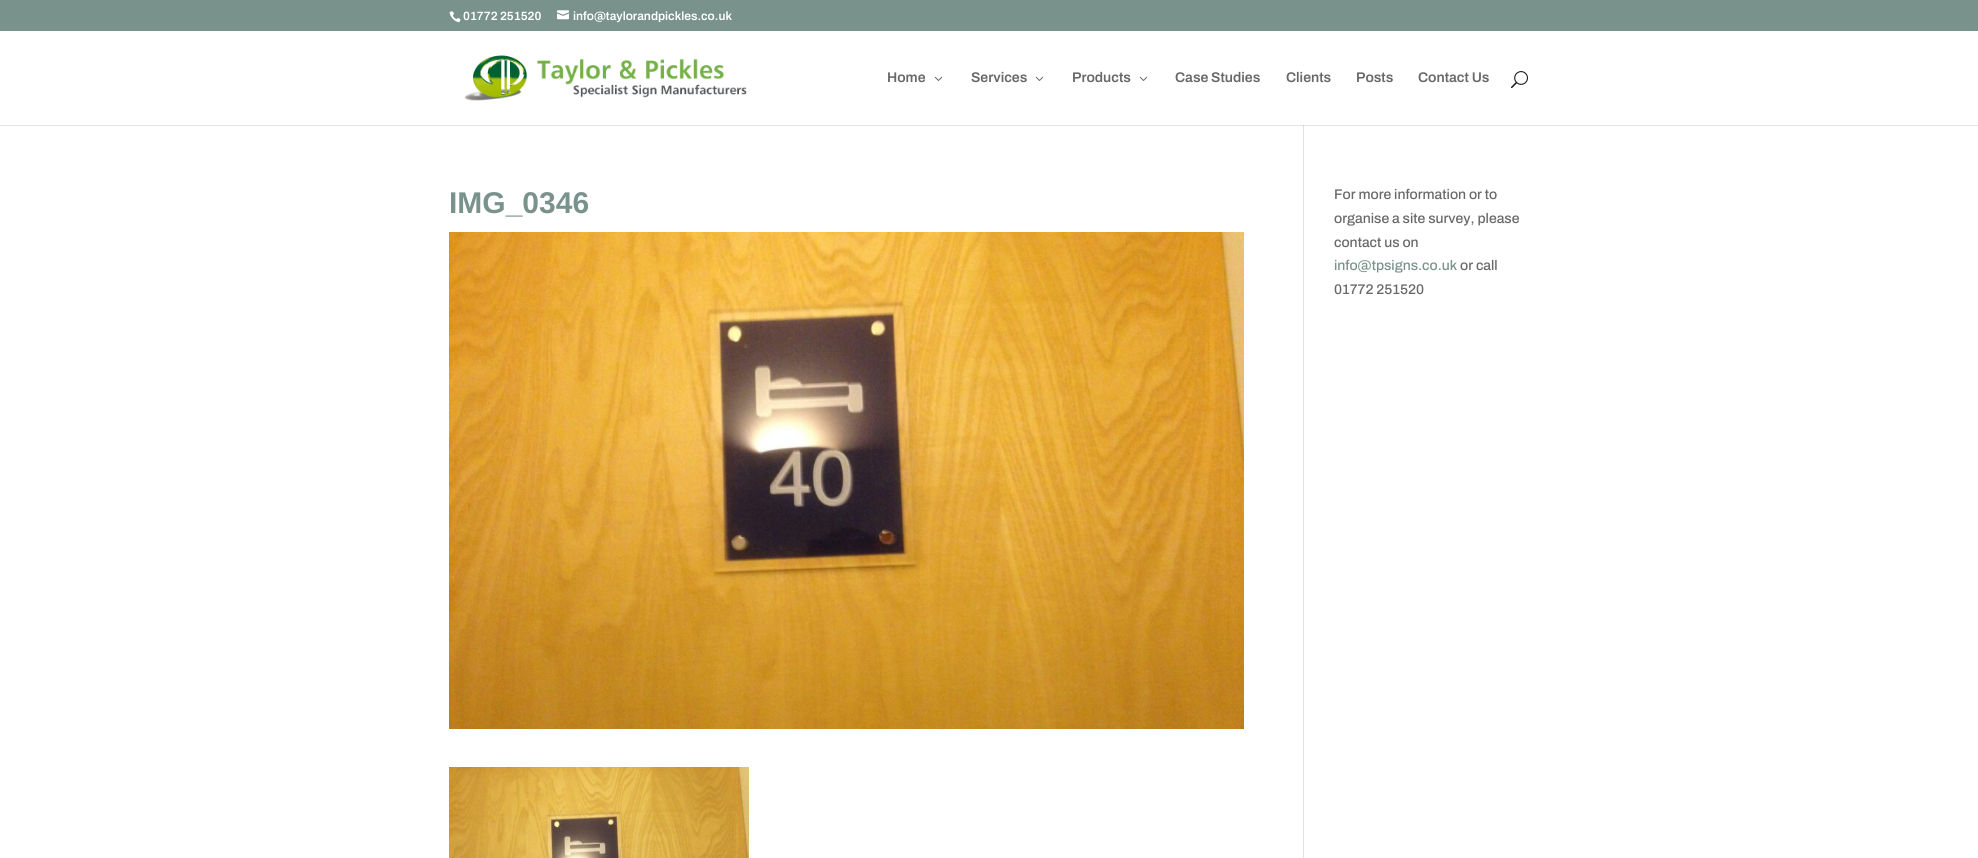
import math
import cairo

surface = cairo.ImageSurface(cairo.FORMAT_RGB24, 1978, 858)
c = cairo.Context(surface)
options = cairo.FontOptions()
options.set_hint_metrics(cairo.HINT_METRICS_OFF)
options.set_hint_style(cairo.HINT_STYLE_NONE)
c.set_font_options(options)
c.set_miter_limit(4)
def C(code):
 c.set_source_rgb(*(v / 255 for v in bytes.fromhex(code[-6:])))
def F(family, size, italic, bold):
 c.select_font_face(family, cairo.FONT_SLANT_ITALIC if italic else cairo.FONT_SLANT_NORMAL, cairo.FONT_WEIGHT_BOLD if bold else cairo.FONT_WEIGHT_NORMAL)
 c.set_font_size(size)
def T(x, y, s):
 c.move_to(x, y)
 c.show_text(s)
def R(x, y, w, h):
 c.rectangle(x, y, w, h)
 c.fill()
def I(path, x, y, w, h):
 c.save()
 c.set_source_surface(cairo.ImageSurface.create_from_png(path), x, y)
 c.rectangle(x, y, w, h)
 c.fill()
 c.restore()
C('79928c')
c.paint()
I('1.png',449,11,12,12)
F('Archivo SemiBold',12,0,0)
C('ffffff')
T(463,20,'01772 251520')
I('2.png',557,10,12,10)
T(573,20,'info@taylorandpickles.co.uk')
R(0,31,1978,94)
I('3.png',464,55,283,46)
F('Archivo SemiBold',14,0,0)
C('686868')
T(887,82,'Home')
I('4.png',934,76,9,5)
T(971,82,'Services')
I('4.png',1035,76,9,5)
T(1072,82,'Products')
I('4.png',1139,76,9,5)
T(1175,82,'Case Studies')
T(1286,82,'Clients')
T(1356,82,'Posts')
T(1418,82,'Contact Us')
I('5.png',1511,71,17,18)
C('ffffff')
R(0,126,1978,732)
C('e6e6e6')
R(0,125,1978,1)
C('e2e2e2')
R(1303,125,1,733)
C('cbcbcb')
R(1303,125,1,1)
F('Liberation Sans',30,0,1)
C('79928c')
T(449,213,'IMG_0346')
I('6.png',449,232,795,497)
I('7.png',449,767,300,91)
F('Archivo Medium',14,0,0)
C('686868')
T(1334,199,'For more information or to')
T(1334,223,'organise a site survey, please')
T(1334,247,'contact us on')
C('79928c')
T(1334,270,'info@tpsigns.co.uk')
C('686868')
T(1460,270,'or call')
T(1334,294,'01772 251520')
surface.write_to_png('o.png')
